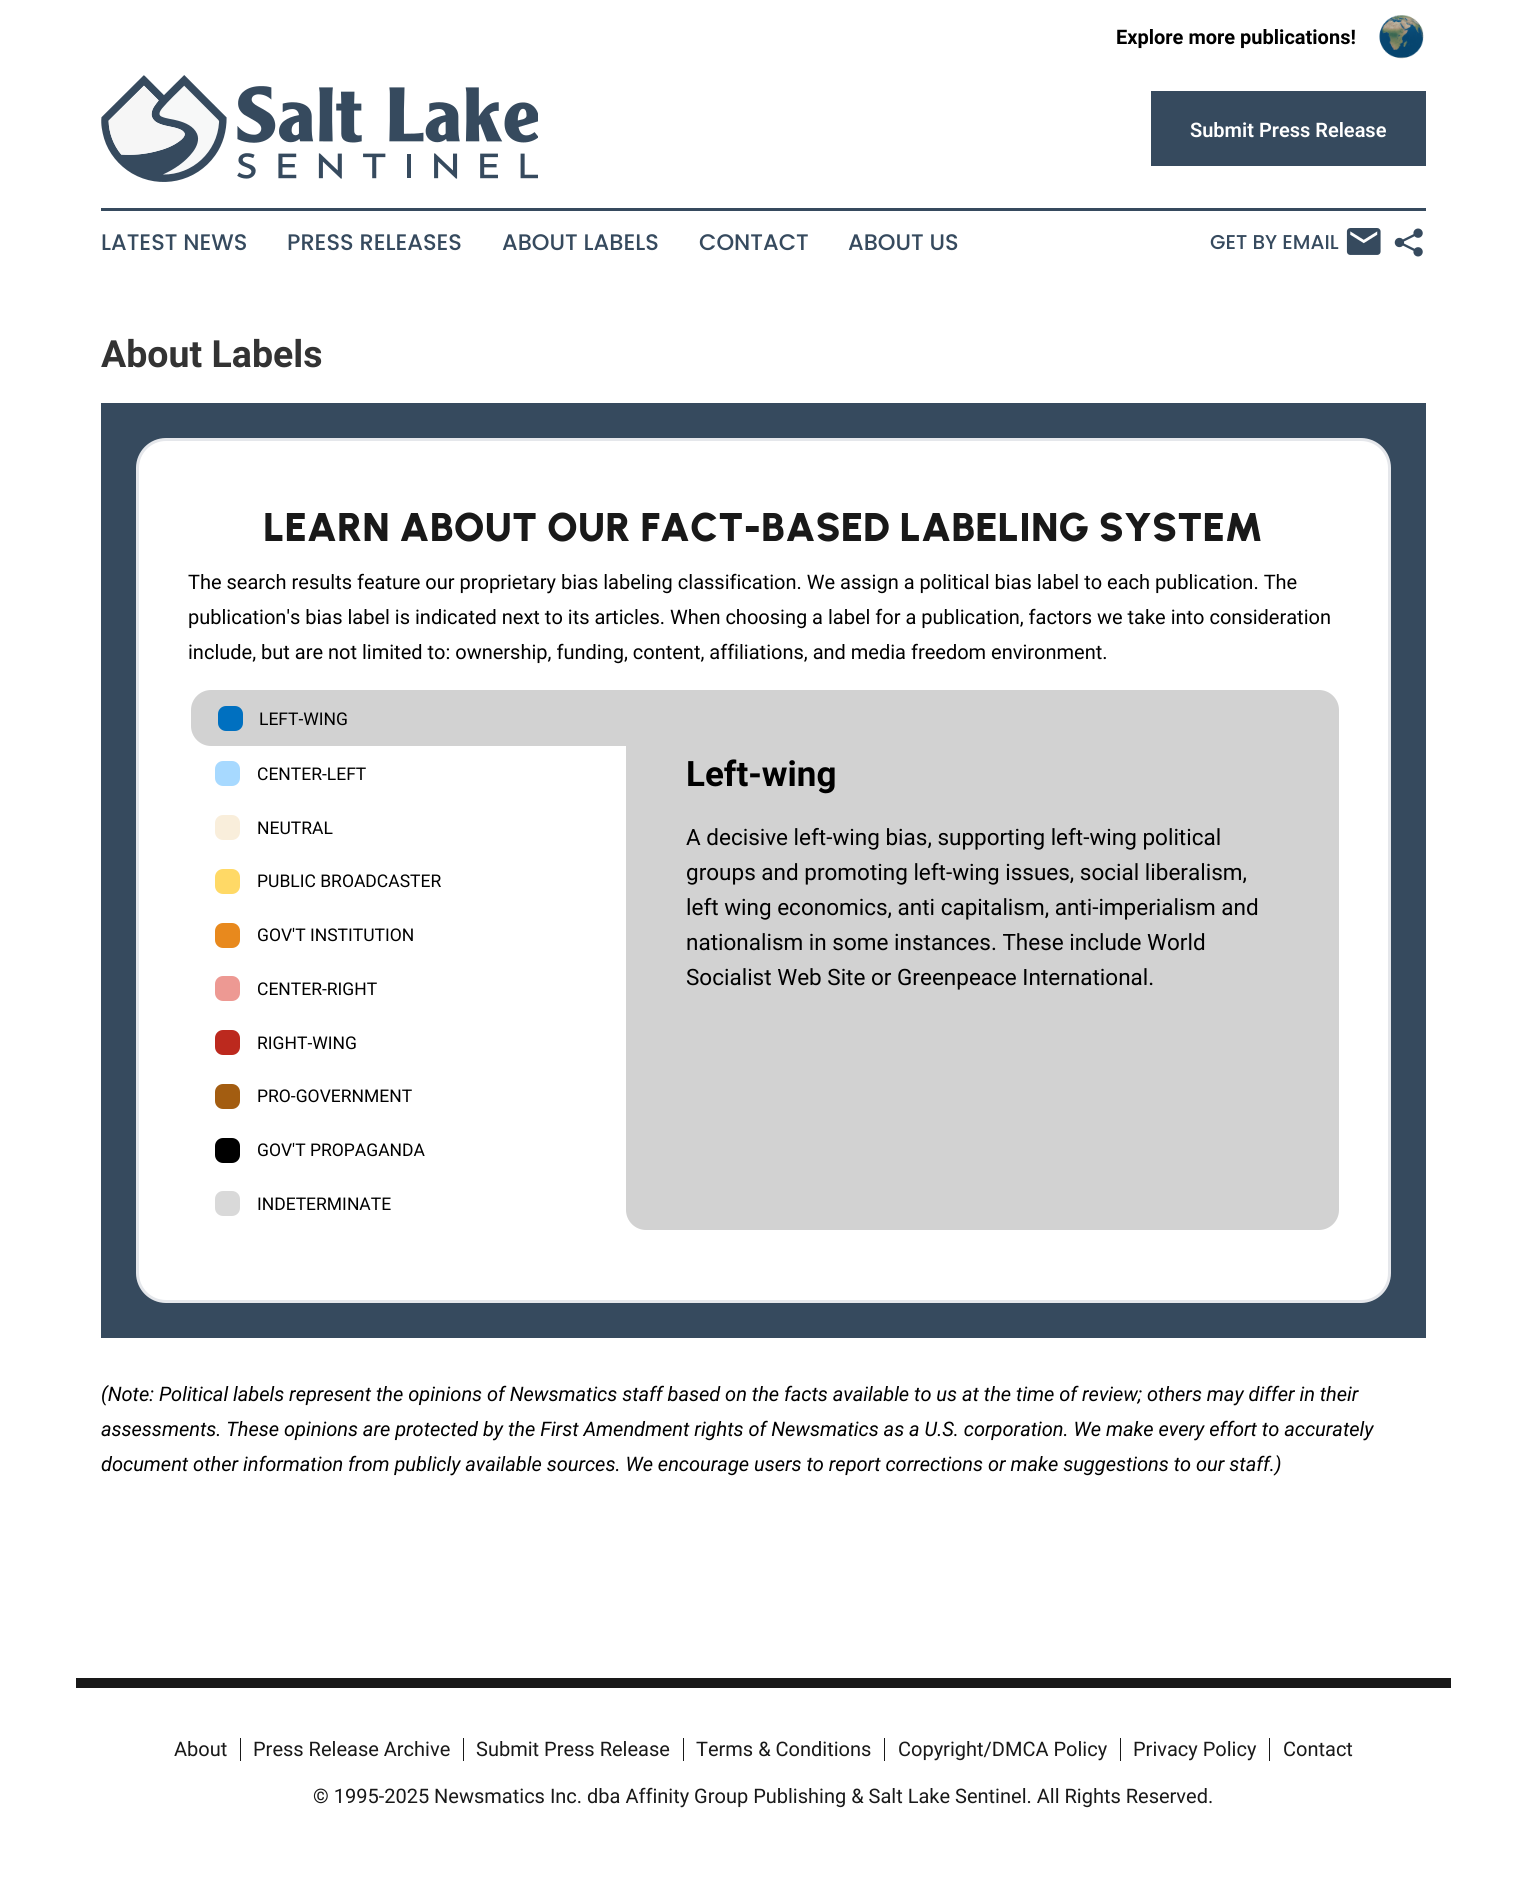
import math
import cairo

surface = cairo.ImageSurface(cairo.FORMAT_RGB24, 1526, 1894)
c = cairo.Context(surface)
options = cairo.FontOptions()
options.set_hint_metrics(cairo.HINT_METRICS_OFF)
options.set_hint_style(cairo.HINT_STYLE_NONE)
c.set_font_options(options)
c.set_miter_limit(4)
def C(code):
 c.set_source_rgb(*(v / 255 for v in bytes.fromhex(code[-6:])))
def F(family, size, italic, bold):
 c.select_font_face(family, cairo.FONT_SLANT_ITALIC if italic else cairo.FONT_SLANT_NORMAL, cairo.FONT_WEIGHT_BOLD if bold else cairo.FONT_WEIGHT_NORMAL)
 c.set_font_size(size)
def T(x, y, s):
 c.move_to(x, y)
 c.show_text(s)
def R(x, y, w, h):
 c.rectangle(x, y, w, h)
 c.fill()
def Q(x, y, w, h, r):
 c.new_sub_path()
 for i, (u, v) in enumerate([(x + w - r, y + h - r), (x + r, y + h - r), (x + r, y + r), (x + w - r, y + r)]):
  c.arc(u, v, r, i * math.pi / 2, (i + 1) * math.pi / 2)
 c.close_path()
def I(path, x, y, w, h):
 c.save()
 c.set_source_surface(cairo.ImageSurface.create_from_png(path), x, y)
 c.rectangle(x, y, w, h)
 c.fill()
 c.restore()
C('ffffff')
c.paint()
F('Roboto',20,0,1)
C('000000')
T(1116,44,'Explore more publications!')
I('1.png',1379,15,45,44)
I('2.png',101,75,437,107)
C('364a5e')
R(1151,91,275,75)
F('Roboto SemiBold',20,0,0)
C('ffffff')
T(1190,137,'Submit Press Release')
C('364a5e')
R(101,208,1325,3)
F('Poppins Medium',22.5,0,0)
T(101,250,'LATEST NEWS')
T(287,250,'PRESS RELEASES')
T(502,250,'ABOUT LABELS')
T(699,250,'CONTACT')
T(848,250,'ABOUT US')
F('Poppins Medium',20,0,0)
T(1210,249,'GET BY EMAIL')
I('3.png',1346,228,35,27)
I('4.png',1394,228,29,29)
F('Roboto',37.5,0,1)
C('333333')
T(101,367,'About Labels')
C('364a5e')
R(101,403,1325,935)
C('ffffff')
Q(137.5,439.5,1252,862,28.5)
c.fill_preserve()
C('e5e7eb')
c.set_line_width(3)
c.stroke()
F('Urbanist Black',40,0,0)
C('191919')
T(263,541,'LEARN ABOUT OUR FACT-BASED LABELING SYSTEM')
F('Roboto',20,0,0)
C('000000')
T(188,589,'The search results feature our proprietary bias labeling classification. We assign a political bias label to each publication. The')
T(188,624,'publication\'s bias label is indicated next to its articles. When choosing a label for a publication, factors we take into consideration')
T(188,659,'include, but are not limited to: ownership, funding, content, affiliations, and media freedom environment.')
C('d2d2d2')
c.new_path()
c.move_to(211,690)
c.line_to(628,690)
c.line_to(628,746)
c.line_to(211,746)
c.curve_to(200,746,191,737,191,726)
c.line_to(191,710)
c.curve_to(191,699,200,690,211,690)
c.close_path()
c.fill()
C('0070c0')
Q(218,706,25,25,8)
c.fill()
F('Roboto',17.5,0,0)
C('000000')
T(259,725,'LEFT-WING')
C('a7d9ff')
Q(215,761,25,25,8)
c.fill()
C('000000')
T(257,780,'CENTER-LEFT')
C('d2d2d2')
c.new_path()
c.move_to(626,690)
c.line_to(1319,690)
c.curve_to(1330,690,1339,699,1339,710)
c.line_to(1339,1210)
c.curve_to(1339,1221,1330,1230,1319,1230)
c.line_to(646,1230)
c.curve_to(635,1230,626,1221,626,1210)
c.close_path()
c.fill()
F('Roboto',35,0,1)
C('000000')
T(686,786,'Left-wing')
F('Roboto',22.5,0,0)
T(686,845,'A decisive left-wing bias, supporting left-wing political')
T(686,880,'groups and promoting left-wing issues, social liberalism,')
T(686,915,'left wing economics, anti capitalism, anti-imperialism and')
T(686,950,'nationalism in some instances. These include World')
T(686,985,'Socialist Web Site or Greenpeace International.')
C('f9eedb')
Q(215,815,25,25,8)
c.fill()
F('Roboto',17.5,0,0)
C('000000')
T(257,834,'NEUTRAL')
C('ffd966')
Q(215,869,25,25,8)
c.fill()
C('000000')
T(257,887,'PUBLIC BROADCASTER')
C('e8891d')
Q(215,923,25,25,8)
c.fill()
C('000000')
T(257,941,'GOV\'T INSTITUTION')
C('ed9993')
Q(215,976,25,25,8)
c.fill()
C('000000')
T(257,995,'CENTER-RIGHT')
C('bc291e')
Q(215,1030,25,25,8)
c.fill()
C('000000')
T(257,1049,'RIGHT-WING')
C('a35d11')
Q(215,1084,25,25,8)
c.fill()
C('000000')
T(257,1102,'PRO-GOVERNMENT')
Q(215,1138,25,25,8)
c.fill()
T(257,1156,'GOV\'T PROPAGANDA')
C('d9d9d9')
Q(215,1191,25,25,8)
c.fill()
C('000000')
T(257,1210,'INDETERMINATE')
F('Roboto',20,1,0)
T(101,1401,'(Note: Political labels represent the opinions of Newsmatics staff based on the facts available to us at the time of review; others may differ in their')
T(101,1436,'assessments. These opinions are protected by the First Amendment rights of Newsmatics as a U.S. corporation. We make every effort to accurately')
T(101,1471,'document other information from publicly available sources. We encourage users to report corrections or make suggestions to our staff.)')
C('191919')
R(76,1678,1375,10)
R(240,1738,1,23)
F('Roboto',20,0,0)
T(174,1756,'About')
R(463,1738,1,23)
T(253,1756,'Press Release Archive')
R(683,1738,1,23)
T(476,1756,'Submit Press Release')
R(884,1738,1,23)
T(696,1756,'Terms & Conditions')
R(1120,1738,1,23)
T(898,1756,'Copyright/DMCA Policy')
R(1269,1738,1,23)
T(1133,1756,'Privacy Policy')
T(1283,1756,'Contact')
T(313,1803,'© 1995-2025 Newsmatics Inc. dba Affinity Group Publishing & Salt Lake Sentinel. All Rights Reserved.')
surface.write_to_png('o.png')
